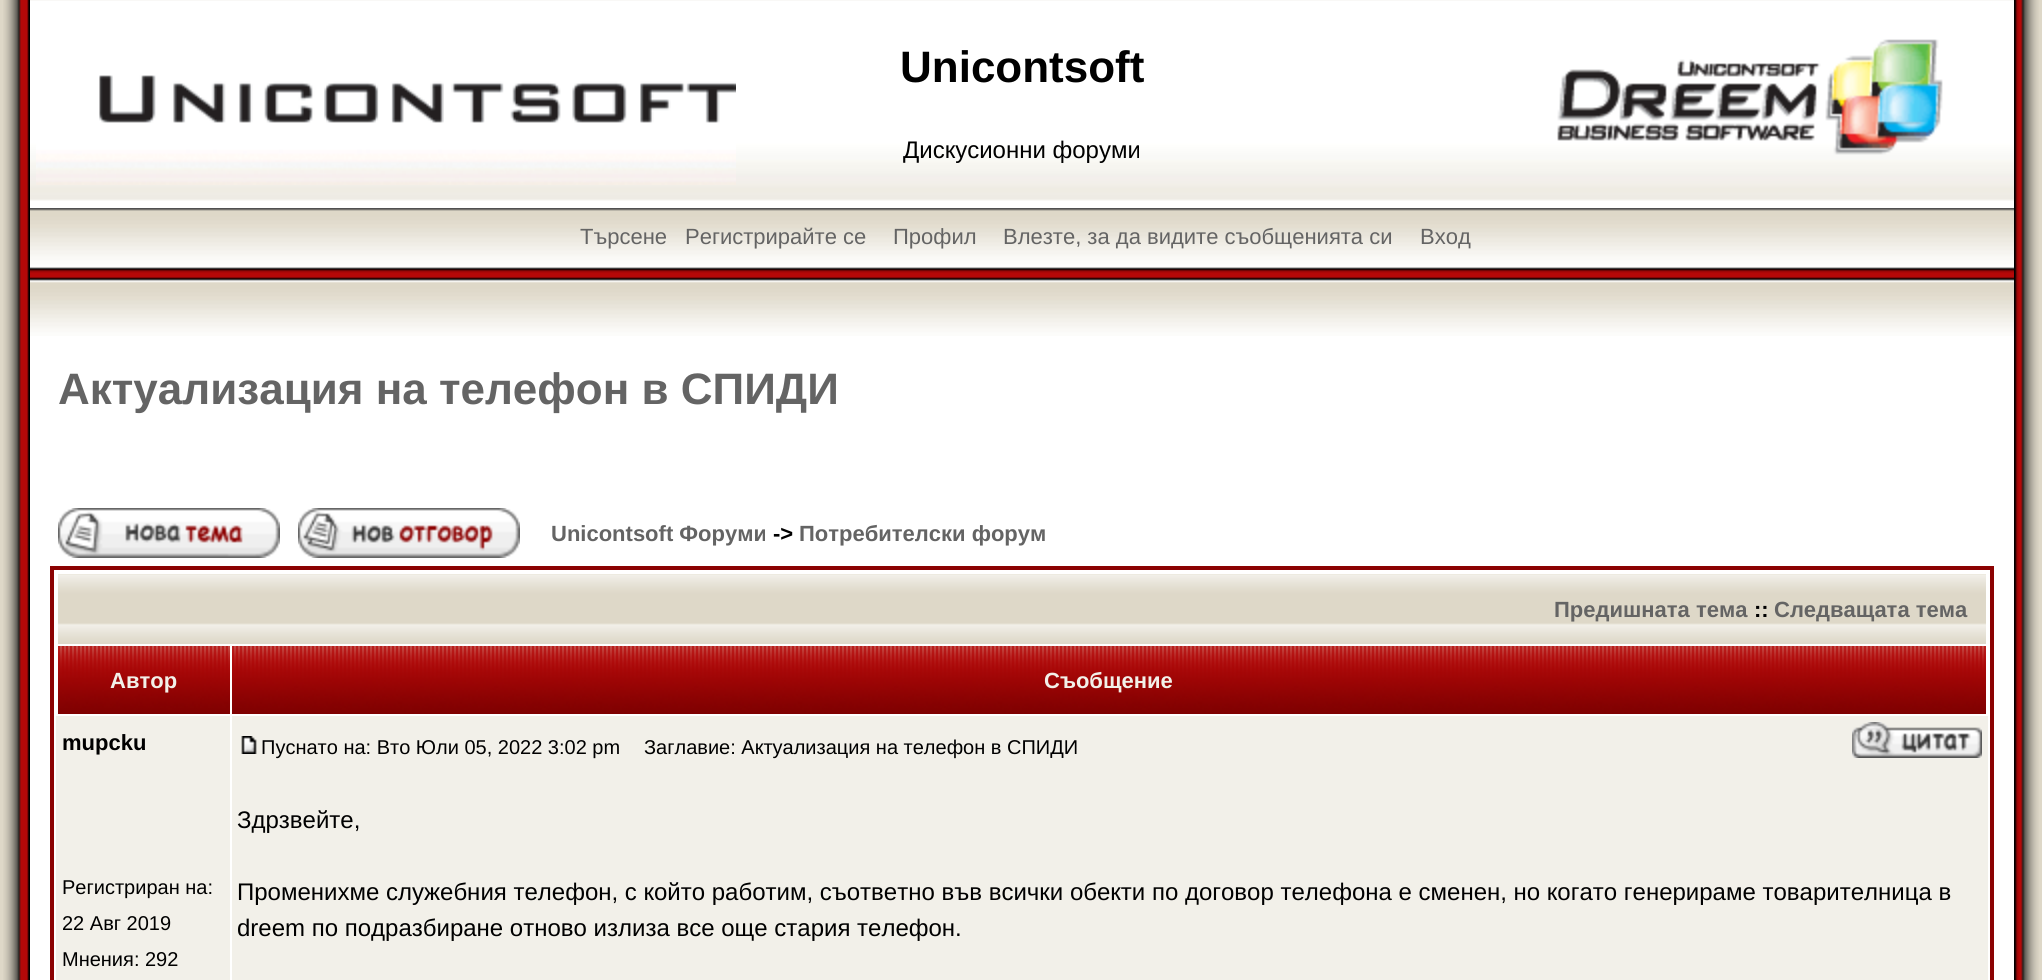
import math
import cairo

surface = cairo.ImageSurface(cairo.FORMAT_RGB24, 2042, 980)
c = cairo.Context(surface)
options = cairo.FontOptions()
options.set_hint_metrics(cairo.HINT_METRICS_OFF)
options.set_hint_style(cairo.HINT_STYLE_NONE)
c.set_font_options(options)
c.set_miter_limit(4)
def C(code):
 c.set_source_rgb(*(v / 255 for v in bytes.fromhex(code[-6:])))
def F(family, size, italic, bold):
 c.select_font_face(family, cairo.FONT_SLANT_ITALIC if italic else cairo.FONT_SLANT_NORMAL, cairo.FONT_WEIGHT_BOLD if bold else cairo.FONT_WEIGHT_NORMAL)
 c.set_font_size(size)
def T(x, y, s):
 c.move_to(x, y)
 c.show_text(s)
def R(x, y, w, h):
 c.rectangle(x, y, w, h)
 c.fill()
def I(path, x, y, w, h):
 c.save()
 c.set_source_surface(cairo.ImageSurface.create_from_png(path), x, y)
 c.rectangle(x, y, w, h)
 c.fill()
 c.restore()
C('ded8c8')
c.paint()
I('1.png',3,0,27,980)
C('ffffff')
R(30,201,1984,779)
I('2.png',30,0,1984,201)
I('3.png',36,75,700,110)
F('Liberation Sans',44,0,1)
C('000000')
T(900,82,'Unicontsoft')
F('Liberation Sans',24,0,0)
T(903,158,'Дискусионни форуми')
I('4.png',1557,39,386,116)
I('5.png',30,208,1984,68)
F('Liberation Sans',22,0,0)
C('646464')
T(580,244,'Търсене')
T(685,244,'Регистрирайте се')
T(893,244,'Профил')
T(1003,244,'Влезте, за да видите съобщенията си')
T(1420,244,'Вход')
I('6.png',30,276,1984,60)
F('Liberation Sans',44,0,1)
T(58,404,'Актуализация на телефон в СПИДИ')
I('7.png',58,508,222,50)
I('8.png',298,508,222,50)
F('Liberation Sans',22,0,1)
T(551,541,'Unicontsoft Форуми')
C('000000')
T(773,541,'->')
C('646464')
T(799,541,'Потребителски форум')
c.rectangle(52,568,1940,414)
C('8b0202')
c.set_line_width(4)
c.stroke()
I('9.png',58,574,1928,70)
C('646464')
T(1554,617,'Предишната тема')
C('000000')
T(1754,617,'::')
C('646464')
T(1774,617,'Следващата тема')
I('10.png',58,646,172,68)
C('f2f0e9')
T(110,688,'Автор')
I('11.png',232,646,1754,68)
T(1044,688,'Съобщение')
R(56,716,174,264)
C('000000')
T(62,750,'mupcku')
F('Liberation Sans',20,0,0)
T(62,894,'Регистриран на:')
T(62,930,'22 Авг 2019')
T(62,966,'Мнения: 292')
C('f2f0e9')
R(232,716,1756,264)
I('12.png',241,736,16,18)
C('000000')
T(261,754,'Пуснато на: Вто Юли 05, 2022 3:02 pm')
T(644,754,'Заглавие: Актуализация на телефон в СПИДИ')
I('13.png',1852,722,130,36)
F('Liberation Sans',24,0,0)
T(237,828,'Здрзвейте,')
T(237,900,'Променихме служебния телефон, с който работим, съответно във всички обекти по договор телефона е сменен, но когато генерираме товарителница в')
T(237,936,'dreem по подразбиране отново излиза все още стария телефон.')
I('14.png',2014,0,25,980)
surface.write_to_png('o.png')
